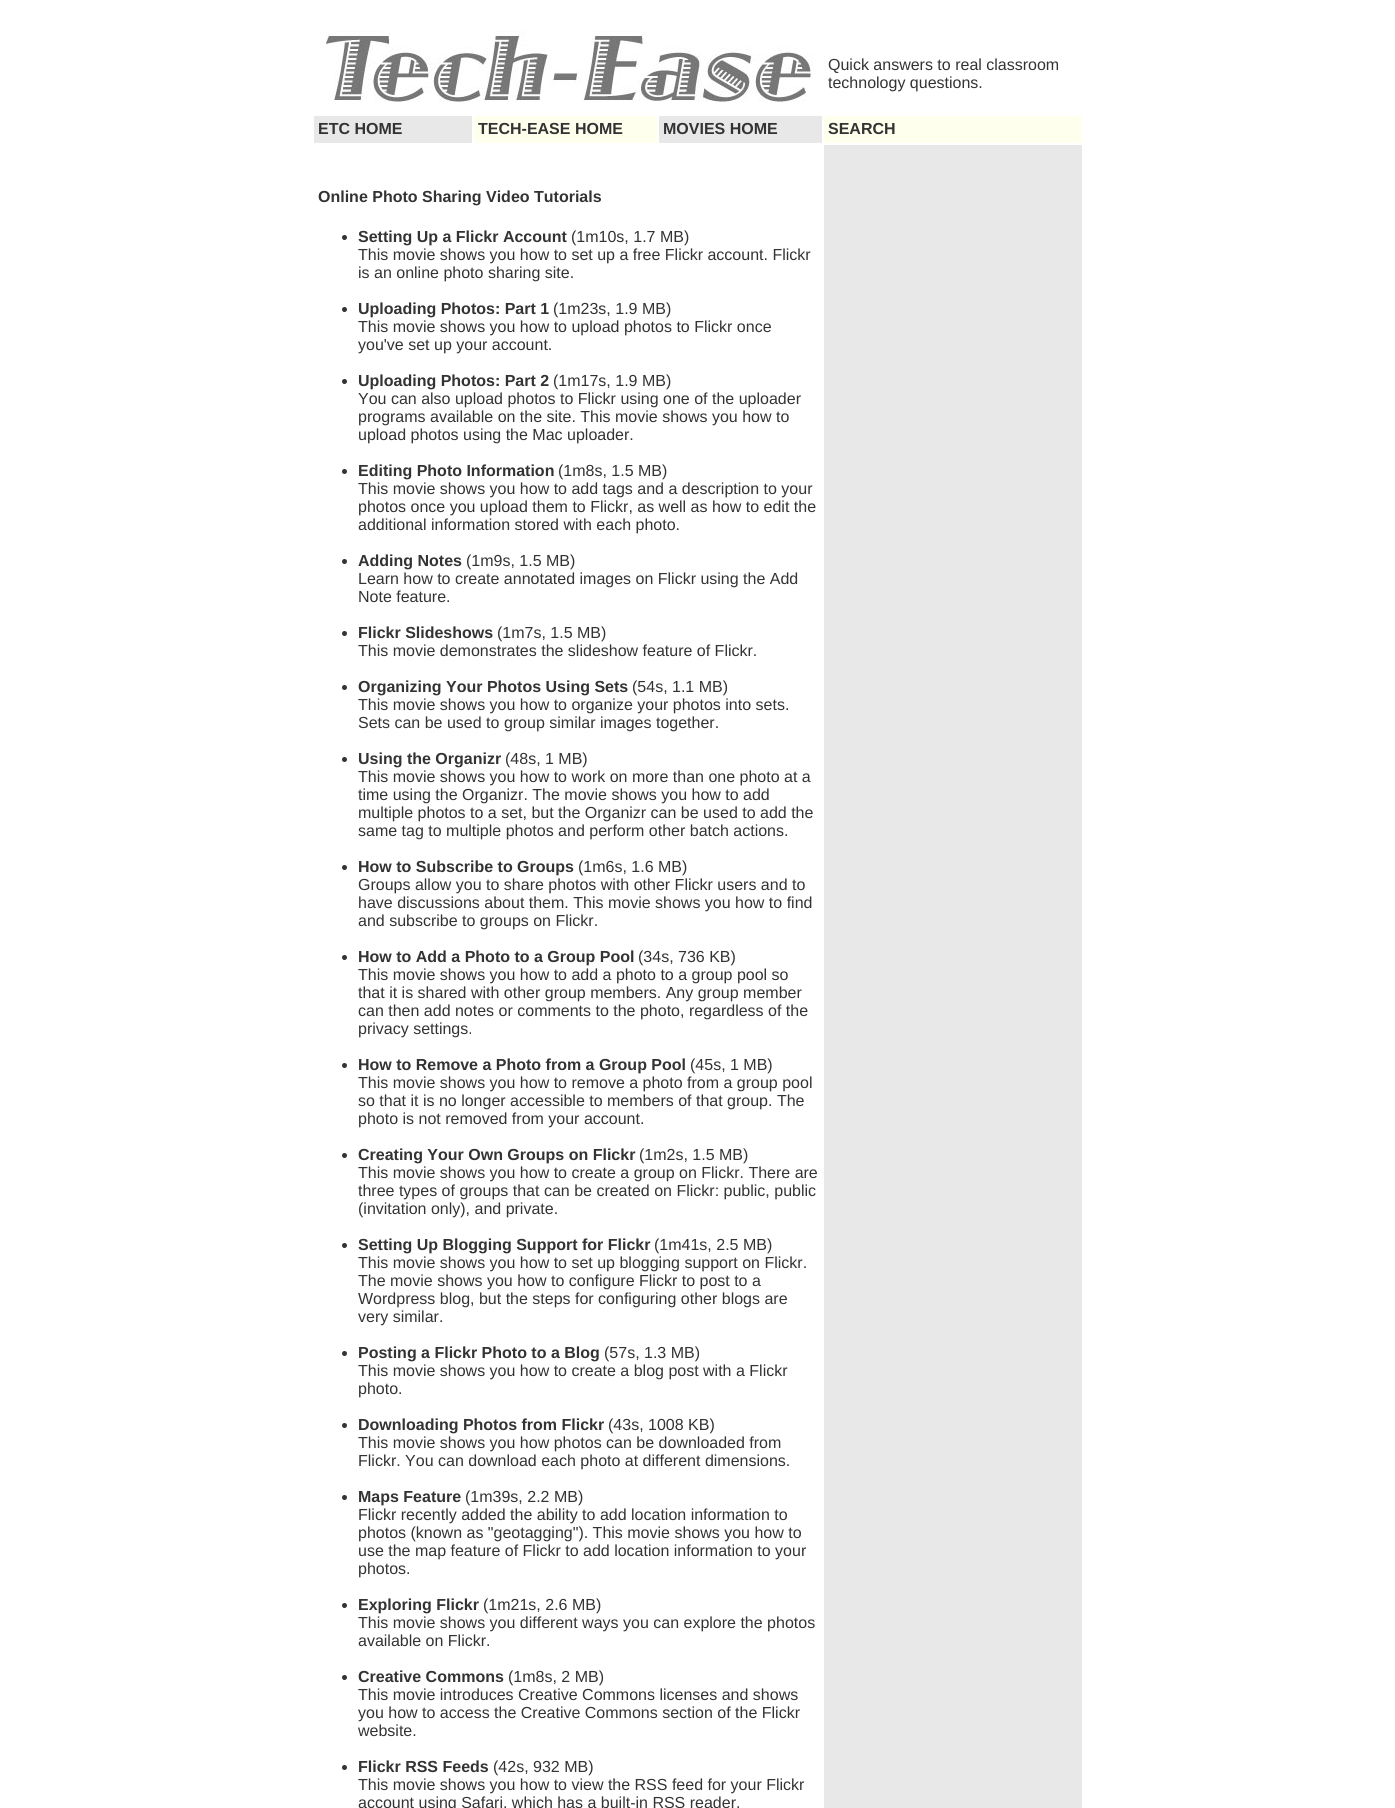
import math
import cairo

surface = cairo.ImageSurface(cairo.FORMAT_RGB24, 1395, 1808)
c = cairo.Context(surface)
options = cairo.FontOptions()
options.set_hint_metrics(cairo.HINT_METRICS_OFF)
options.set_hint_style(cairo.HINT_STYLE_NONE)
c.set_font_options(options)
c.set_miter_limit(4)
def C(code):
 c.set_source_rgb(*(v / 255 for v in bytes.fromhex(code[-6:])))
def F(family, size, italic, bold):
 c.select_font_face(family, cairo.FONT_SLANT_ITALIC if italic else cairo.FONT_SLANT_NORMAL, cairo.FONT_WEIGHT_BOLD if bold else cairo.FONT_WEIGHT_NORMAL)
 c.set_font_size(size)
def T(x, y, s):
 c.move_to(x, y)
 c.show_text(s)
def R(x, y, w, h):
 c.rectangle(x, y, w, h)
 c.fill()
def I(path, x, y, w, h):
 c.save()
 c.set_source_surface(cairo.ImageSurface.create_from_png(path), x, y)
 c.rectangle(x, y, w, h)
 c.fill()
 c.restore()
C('ffffff')
c.paint()
I('1.png',326,30,488,72)
F('Liberation Sans',16,0,0)
C('333333')
T(828,70,'Quick answers to real classroom')
T(828,88,'technology questions.')
C('e8e8e8')
R(314,116,158,27)
F('Liberation Sans',16,0,1)
C('333333')
T(318,134,'ETC HOME')
C('ffffee')
R(474,116,183,27)
C('333333')
T(478,134,'TECH-EASE HOME')
C('e8e8e8')
R(659,116,163,27)
C('333333')
T(663,134,'MOVIES HOME')
C('ffffee')
R(824,116,258,27)
C('333333')
T(828,134,'SEARCH')
T(318,202,'Online Photo Sharing Video Tutorials')
c.new_path()
c.arc(344.5,237.5,2.5,0,2 * math.pi)
c.fill()
T(358,242,'Setting Up a Flickr Account')
F('Liberation Sans',16,0,0)
T(571,242,'(1m10s, 1.7 MB)')
T(358,260,'This movie shows you how to set up a free Flickr account. Flickr')
T(358,278,'is an online photo sharing site.')
c.new_path()
c.arc(344.5,309.5,2.5,0,2 * math.pi)
c.fill()
F('Liberation Sans',16,0,1)
T(358,314,'Uploading Photos: Part 1')
F('Liberation Sans',16,0,0)
T(553,314,'(1m23s, 1.9 MB)')
T(358,332,'This movie shows you how to upload photos to Flickr once')
T(358,350,'you\'ve set up your account.')
c.new_path()
c.arc(344.5,381.5,2.5,0,2 * math.pi)
c.fill()
F('Liberation Sans',16,0,1)
T(358,386,'Uploading Photos: Part 2')
F('Liberation Sans',16,0,0)
T(553,386,'(1m17s, 1.9 MB)')
T(358,404,'You can also upload photos to Flickr using one of the uploader')
T(358,422,'programs available on the site. This movie shows you how to')
T(358,440,'upload photos using the Mac uploader.')
c.new_path()
c.arc(344.5,471.5,2.5,0,2 * math.pi)
c.fill()
F('Liberation Sans',16,0,1)
T(358,476,'Editing Photo Information')
F('Liberation Sans',16,0,0)
T(558,476,'(1m8s, 1.5 MB)')
T(358,494,'This movie shows you how to add tags and a description to your')
T(358,512,'photos once you upload them to Flickr, as well as how to edit the')
T(358,530,'additional information stored with each photo.')
c.new_path()
c.arc(344.5,561.5,2.5,0,2 * math.pi)
c.fill()
F('Liberation Sans',16,0,1)
T(358,566,'Adding Notes')
F('Liberation Sans',16,0,0)
T(466,566,'(1m9s, 1.5 MB)')
T(358,584,'Learn how to create annotated images on Flickr using the Add')
T(358,602,'Note feature.')
c.new_path()
c.arc(344.5,633.5,2.5,0,2 * math.pi)
c.fill()
F('Liberation Sans',16,0,1)
T(358,638,'Flickr Slideshows')
F('Liberation Sans',16,0,0)
T(497,638,'(1m7s, 1.5 MB)')
T(358,656,'This movie demonstrates the slideshow feature of Flickr.')
c.new_path()
c.arc(344.5,687.5,2.5,0,2 * math.pi)
c.fill()
F('Liberation Sans',16,0,1)
T(358,692,'Organizing Your Photos Using Sets')
F('Liberation Sans',16,0,0)
T(632,692,'(54s, 1.1 MB)')
T(358,710,'This movie shows you how to organize your photos into sets.')
T(358,728,'Sets can be used to group similar images together.')
c.new_path()
c.arc(344.5,759.5,2.5,0,2 * math.pi)
c.fill()
F('Liberation Sans',16,0,1)
T(358,764,'Using the Organizr')
F('Liberation Sans',16,0,0)
T(505,764,'(48s, 1 MB)')
T(358,782,'This movie shows you how to work on more than one photo at a')
T(358,800,'time using the Organizr. The movie shows you how to add')
T(358,818,'multiple photos to a set, but the Organizr can be used to add the')
T(358,836,'same tag to multiple photos and perform other batch actions.')
c.new_path()
c.arc(344.5,867.5,2.5,0,2 * math.pi)
c.fill()
F('Liberation Sans',16,0,1)
T(358,872,'How to Subscribe to Groups')
F('Liberation Sans',16,0,0)
T(578,872,'(1m6s, 1.6 MB)')
T(358,890,'Groups allow you to share photos with other Flickr users and to')
T(358,908,'have discussions about them. This movie shows you how to find')
T(358,926,'and subscribe to groups on Flickr.')
c.new_path()
c.arc(344.5,957.5,2.5,0,2 * math.pi)
c.fill()
F('Liberation Sans',16,0,1)
T(358,962,'How to Add a Photo to a Group Pool')
F('Liberation Sans',16,0,0)
T(638,962,'(34s, 736 KB)')
T(358,980,'This movie shows you how to add a photo to a group pool so')
T(358,998,'that it is shared with other group members. Any group member')
T(358,1016,'can then add notes or comments to the photo, regardless of the')
T(358,1034,'privacy settings.')
c.new_path()
c.arc(344.5,1065.5,2.5,0,2 * math.pi)
c.fill()
F('Liberation Sans',16,0,1)
T(358,1070,'How to Remove a Photo from a Group Pool')
F('Liberation Sans',16,0,0)
T(690,1070,'(45s, 1 MB)')
T(358,1088,'This movie shows you how to remove a photo from a group pool')
T(358,1106,'so that it is no longer accessible to members of that group. The')
T(358,1124,'photo is not removed from your account.')
c.new_path()
c.arc(344.5,1155.5,2.5,0,2 * math.pi)
c.fill()
F('Liberation Sans',16,0,1)
T(358,1160,'Creating Your Own Groups on Flickr')
F('Liberation Sans',16,0,0)
T(639,1160,'(1m2s, 1.5 MB)')
T(358,1178,'This movie shows you how to create a group on Flickr. There are')
T(358,1196,'three types of groups that can be created on Flickr: public, public')
T(358,1214,'(invitation only), and private.')
c.new_path()
c.arc(344.5,1245.5,2.5,0,2 * math.pi)
c.fill()
F('Liberation Sans',16,0,1)
T(358,1250,'Setting Up Blogging Support for Flickr')
F('Liberation Sans',16,0,0)
T(654,1250,'(1m41s, 2.5 MB)')
T(358,1268,'This movie shows you how to set up blogging support on Flickr.')
T(358,1286,'The movie shows you how to configure Flickr to post to a')
T(358,1304,'Wordpress blog, but the steps for configuring other blogs are')
T(358,1322,'very similar.')
c.new_path()
c.arc(344.5,1353.5,2.5,0,2 * math.pi)
c.fill()
F('Liberation Sans',16,0,1)
T(358,1358,'Posting a Flickr Photo to a Blog')
F('Liberation Sans',16,0,0)
T(604,1358,'(57s, 1.3 MB)')
T(358,1376,'This movie shows you how to create a blog post with a Flickr')
T(358,1394,'photo.')
c.new_path()
c.arc(344.5,1425.5,2.5,0,2 * math.pi)
c.fill()
F('Liberation Sans',16,0,1)
T(358,1430,'Downloading Photos from Flickr')
F('Liberation Sans',16,0,0)
T(608,1430,'(43s, 1008 KB)')
T(358,1448,'This movie shows you how photos can be downloaded from')
T(358,1466,'Flickr. You can download each photo at different dimensions.')
c.new_path()
c.arc(344.5,1497.5,2.5,0,2 * math.pi)
c.fill()
F('Liberation Sans',16,0,1)
T(358,1502,'Maps Feature')
F('Liberation Sans',16,0,0)
T(465,1502,'(1m39s, 2.2 MB)')
T(358,1520,'Flickr recently added the ability to add location information to')
T(358,1538,'photos (known as "geotagging"). This movie shows you how to')
T(358,1556,'use the map feature of Flickr to add location information to your')
T(358,1574,'photos.')
c.new_path()
c.arc(344.5,1605.5,2.5,0,2 * math.pi)
c.fill()
F('Liberation Sans',16,0,1)
T(358,1610,'Exploring Flickr')
F('Liberation Sans',16,0,0)
T(483,1610,'(1m21s, 2.6 MB)')
T(358,1628,'This movie shows you different ways you can explore the photos')
T(358,1646,'available on Flickr.')
c.new_path()
c.arc(344.5,1677.5,2.5,0,2 * math.pi)
c.fill()
F('Liberation Sans',16,0,1)
T(358,1682,'Creative Commons')
F('Liberation Sans',16,0,0)
T(508,1682,'(1m8s, 2 MB)')
T(358,1700,'This movie introduces Creative Commons licenses and shows')
T(358,1718,'you how to access the Creative Commons section of the Flickr')
T(358,1736,'website.')
c.new_path()
c.arc(344.5,1767.5,2.5,0,2 * math.pi)
c.fill()
F('Liberation Sans',16,0,1)
T(358,1772,'Flickr RSS Feeds')
F('Liberation Sans',16,0,0)
T(493,1772,'(42s, 932 MB)')
T(358,1790,'This movie shows you how to view the RSS feed for your Flickr')
T(358,1808,'account using Safari, which has a built-in RSS reader.')
C('e8e8e8')
R(824,145,258,1663)
surface.write_to_png('o.png')
